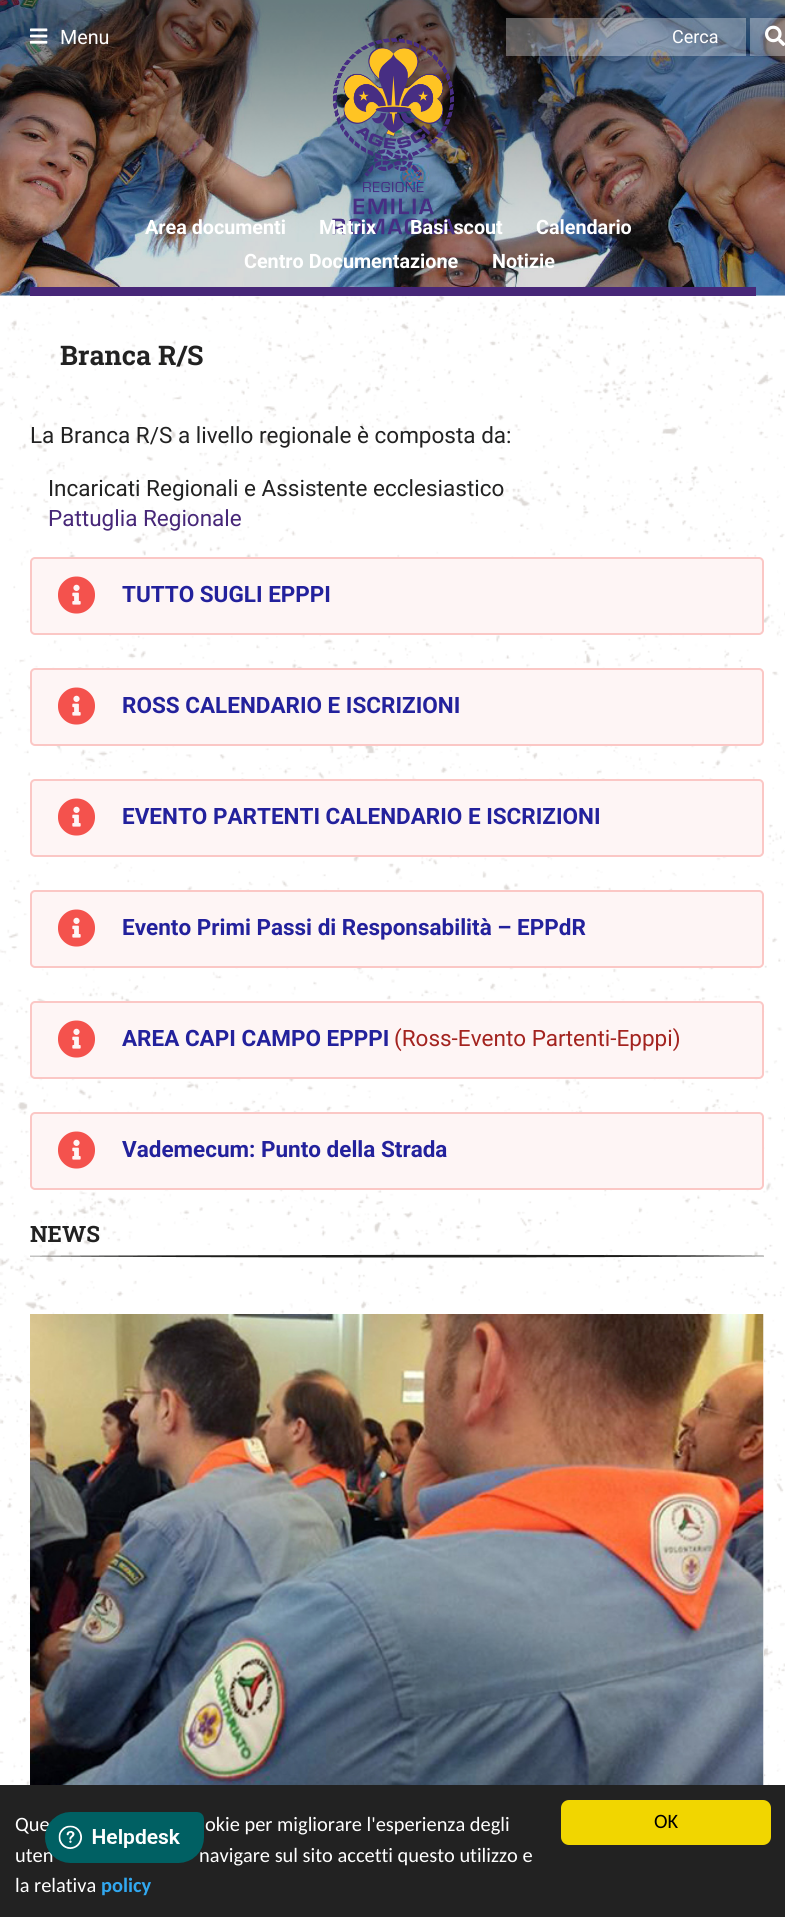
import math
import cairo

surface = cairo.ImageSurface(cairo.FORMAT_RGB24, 785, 1917)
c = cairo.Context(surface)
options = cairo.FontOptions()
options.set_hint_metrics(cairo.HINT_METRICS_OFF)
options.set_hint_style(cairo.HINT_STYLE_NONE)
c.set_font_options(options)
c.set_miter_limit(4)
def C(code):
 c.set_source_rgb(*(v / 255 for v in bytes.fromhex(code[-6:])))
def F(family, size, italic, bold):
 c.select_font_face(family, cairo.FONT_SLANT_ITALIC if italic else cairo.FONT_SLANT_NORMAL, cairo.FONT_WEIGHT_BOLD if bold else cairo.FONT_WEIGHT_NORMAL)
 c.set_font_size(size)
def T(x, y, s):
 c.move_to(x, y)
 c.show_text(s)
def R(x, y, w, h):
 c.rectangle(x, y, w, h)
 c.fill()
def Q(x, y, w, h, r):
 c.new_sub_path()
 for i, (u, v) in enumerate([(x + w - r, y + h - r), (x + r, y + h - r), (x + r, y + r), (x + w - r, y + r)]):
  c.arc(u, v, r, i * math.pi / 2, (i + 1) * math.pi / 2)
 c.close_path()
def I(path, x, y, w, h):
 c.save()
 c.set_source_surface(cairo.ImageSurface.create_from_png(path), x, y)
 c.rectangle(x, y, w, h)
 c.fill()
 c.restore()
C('f1f1f1')
c.paint()
C('ffffff')
R(0,296,785,1489)
I('5.png',0,295,785,1490)
I('1.png',0,0,785,296)
I('2.png',30,28,18,16)
F('Roboto',19.75,0,0)
T(60,44,'Menu')
I('3.png',332,38,123,197)
c.set_source_rgba(1,1,1,0.33)
R(506,18,240,38)
F('Roboto',18,0,0)
C('ffffff')
T(672,43,'Cerca')
c.set_source_rgba(1,1,1,0.33)
R(750,18,35,38)
I('4.png',765,25,20,21)
C('472778')
R(30,287,726,9)
F('Roboto',19.75,0,1)
C('ffffff')
T(145,234,'Area documenti')
T(319,234,'Matrix')
T(410,234,'Basi scout')
T(536,234,'Calendario')
T(244,268,'Centro Documentazione')
T(492,268,'Notizie')
F('Roboto Slab',27,0,1)
C('222222')
T(60,365,'Branca R/S')
F('Roboto',22.5,0,0)
T(30,443,'La Branca R/S a livello regionale è composta da:')
T(48,496,'Incaricati Regionali e Assistente ecclesiastico')
C('472778')
T(48,526,'Pattuglia Regionale')
C('fef5f5')
Q(31,558,732,76,4)
c.fill_preserve()
C('fbc7c5')
c.stroke()
I('6.png',58,576,37,38)
F('Roboto',22.5,0,1)
C('23219c')
T(122,602,'TUTTO SUGLI EPPPI')
C('fef5f5')
Q(31,669,732,76,4)
c.fill_preserve()
C('fbc7c5')
c.stroke()
I('6.png',58,687,37,38)
C('23219c')
T(122,713,'ROSS CALENDARIO E ISCRIZIONI')
C('fef5f5')
Q(31,780,732,76,4)
c.fill_preserve()
C('fbc7c5')
c.stroke()
I('6.png',58,798,37,38)
C('23219c')
T(122,824,'EVENTO PARTENTI CALENDARIO E ISCRIZIONI')
C('fef5f5')
Q(31,891,732,76,4)
c.fill_preserve()
C('fbc7c5')
c.stroke()
I('6.png',58,909,37,38)
C('23219c')
T(122,935,'Evento Primi Passi di Responsabilità – EPPdR')
C('fef5f5')
Q(31,1002,732,76,4)
c.fill_preserve()
C('fbc7c5')
c.stroke()
I('6.png',58,1020,37,38)
C('23219c')
T(122,1046,'AREA CAPI CAMPO EPPPI')
F('Roboto',22.5,0,0)
C('a3231f')
T(394,1046,'(Ross-Evento Partenti-Epppi)')
C('fef5f5')
Q(31,1113,732,76,4)
c.fill_preserve()
C('fbc7c5')
c.stroke()
I('6.png',58,1131,37,38)
F('Roboto',22.5,0,1)
C('23219c')
T(122,1157,'Vademecum: Punto della Strada')
c.save()
c.rectangle(30,1254,734,5)
c.clip()
C('1d1d1b')
c.new_path()
c.move_to(-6,1256)
c.curve_to(263,1255,532,1254,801,1256)
c.curve_to(532,1258,263,1258,-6,1256)
c.close_path()
c.fill()
c.restore()
F('Roboto Slab',22.5,0,1)
C('222222')
T(30,1242,'NEWS')
C('ffffff')
R(763,1349,1,436)
I('7.png',30,1314,734,471)
C('222222')
R(0,1785,785,132)
F('Carlito',20.4,0,0)
C('ffffff')
T(15,1831,'Que')
T(15,1862,'uten')
T(199,1862,'navigare sul sito accetti questo utilizzo e')
I('8.png',45,1812,159,51)
T(205,1831,'okie per migliorare l\'esperienza degli')
T(15,1892,'la relativa')
F('Carlito',20.4,0,1)
C('31a8f0')
T(101,1892,'policy')
C('f1d600')
Q(561,1800,210,45,8)
c.fill()
F('Carlito',20.4,0,0)
C('000000')
T(654,1828,'OK')
surface.write_to_png('o.png')
